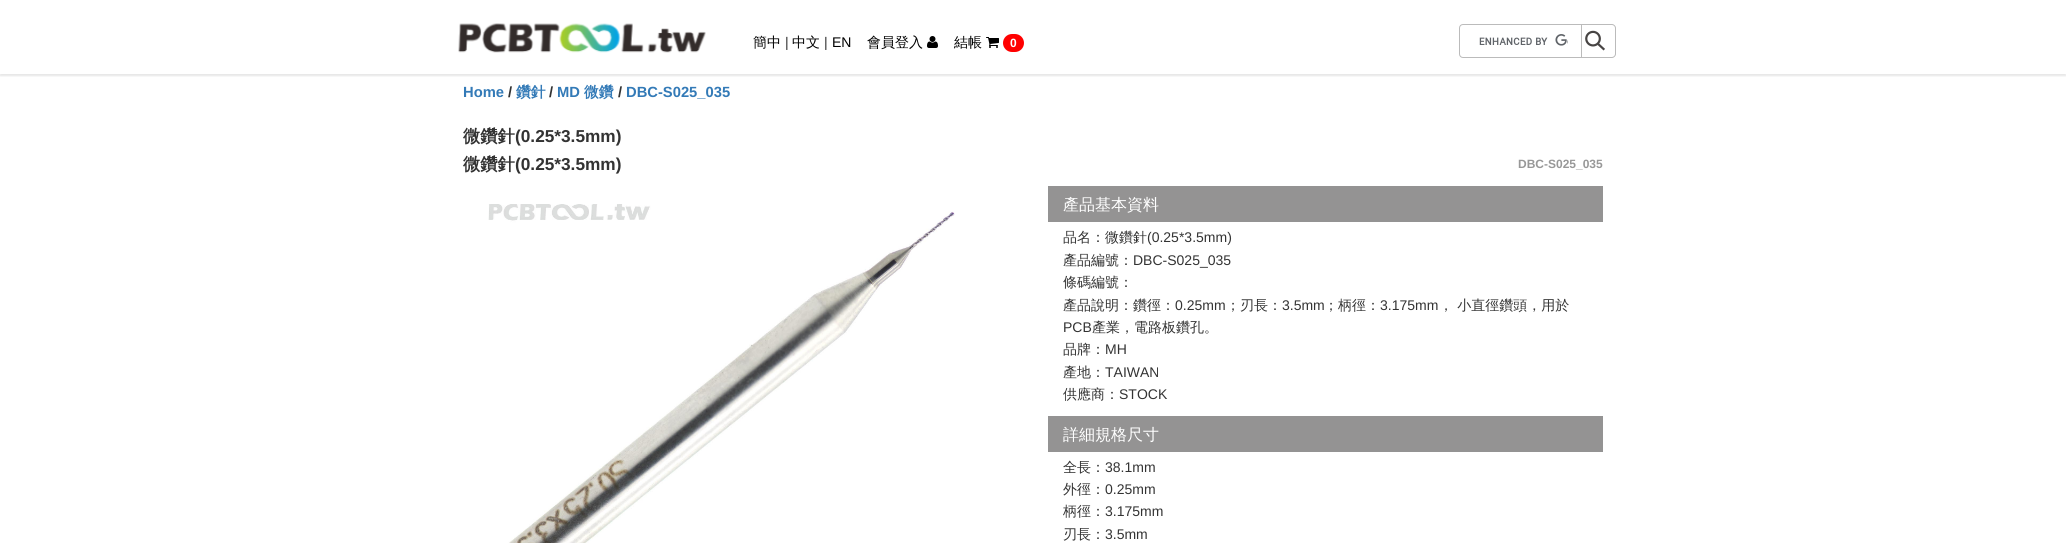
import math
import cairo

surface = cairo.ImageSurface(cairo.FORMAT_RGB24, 2066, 543)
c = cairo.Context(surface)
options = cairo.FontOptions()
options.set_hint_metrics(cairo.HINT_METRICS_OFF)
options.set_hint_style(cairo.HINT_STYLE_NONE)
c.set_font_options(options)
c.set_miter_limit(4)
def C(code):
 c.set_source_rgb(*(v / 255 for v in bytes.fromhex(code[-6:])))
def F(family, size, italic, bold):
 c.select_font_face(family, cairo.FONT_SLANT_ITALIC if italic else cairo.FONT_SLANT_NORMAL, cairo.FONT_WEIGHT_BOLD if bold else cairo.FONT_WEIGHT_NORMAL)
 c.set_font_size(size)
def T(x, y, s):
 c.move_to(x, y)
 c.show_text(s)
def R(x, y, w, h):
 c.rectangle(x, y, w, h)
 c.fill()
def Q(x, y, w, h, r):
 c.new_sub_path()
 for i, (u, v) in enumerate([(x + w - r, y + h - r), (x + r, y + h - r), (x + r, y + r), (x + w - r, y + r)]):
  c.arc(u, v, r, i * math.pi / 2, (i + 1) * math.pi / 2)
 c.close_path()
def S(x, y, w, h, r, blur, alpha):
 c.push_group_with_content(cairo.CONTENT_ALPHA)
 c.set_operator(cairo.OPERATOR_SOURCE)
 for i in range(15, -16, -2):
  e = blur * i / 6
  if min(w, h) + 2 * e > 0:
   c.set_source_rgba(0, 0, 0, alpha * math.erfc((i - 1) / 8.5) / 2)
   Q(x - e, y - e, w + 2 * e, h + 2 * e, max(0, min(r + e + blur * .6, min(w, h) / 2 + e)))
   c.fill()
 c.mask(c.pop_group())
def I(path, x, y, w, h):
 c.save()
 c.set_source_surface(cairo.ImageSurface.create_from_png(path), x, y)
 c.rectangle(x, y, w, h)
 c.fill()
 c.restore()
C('ffffff')
c.paint()
c.save()
c.rectangle(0,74,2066,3)
c.clip()
C('000000')
S(0,2,2066,74,0,1,.1)
c.restore()
I('1.png',458,23,248,30)
F('WenQuanYi Zen Hei Medium',14,0,0)
C('000000')
T(753,47,'簡中')
F('Liberation Sans',14,0,0)
C('333333')
T(785,47,'|')
F('WenQuanYi Zen Hei Medium',14,0,0)
C('000000')
T(792,47,'中文')
F('Liberation Sans',14,0,0)
C('333333')
T(824,47,'|')
C('000000')
T(832,47,'EN')
F('WenQuanYi Zen Hei Medium',14,0,0)
T(867,47,'會員登入')
I('2.png',927,36,11,12)
T(954,47,'結帳')
I('3.png',986,37,13,11)
C('ff0000')
Q(1003,34,21,18,9)
c.fill()
F('Liberation Sans',12,0,1)
C('ffffff')
T(1010,47,'0')
c.new_path()
c.move_to(1463,24.5)
c.line_to(1581.5,24.5)
c.line_to(1581.5,57.5)
c.line_to(1463,57.5)
c.curve_to(1461,57.5,1459.5,56,1459.5,54)
c.line_to(1459.5,28)
c.curve_to(1459.5,26,1461,24.5,1463,24.5)
c.close_path()
C('bbbbbb')
c.set_line_width(1)
c.stroke()
I('4.png',1479,34,89,12)
I('5.png',1585,30,20,21)
c.set_fill_rule(cairo.FILL_RULE_EVEN_ODD)
c.new_path()
c.move_to(1582,24)
c.line_to(1612,24)
c.curve_to(1614,24,1616,26,1616,28)
c.line_to(1616,54)
c.curve_to(1616,56,1614,58,1612,58)
c.line_to(1582,58)
c.close_path()
c.move_to(1582,25)
c.line_to(1612,25)
c.curve_to(1613.5,25,1615,26.5,1615,28)
c.line_to(1615,54)
c.curve_to(1615,55.5,1613.5,57,1612,57)
c.line_to(1582,57)
c.close_path()
c.fill()
F('Liberation Sans',14.75,0,1)
C('337ab7')
T(463,97,'Home')
C('333333')
T(508,97,'/')
F('WenQuanYi Zen Hei',14.75,0,1)
C('337ab7')
T(516,97,'鑽針')
F('Liberation Sans',14.75,0,1)
C('333333')
T(549,97,'/')
C('337ab7')
T(557,97,'MD')
F('WenQuanYi Zen Hei',14.75,0,1)
T(584,97,'微鑽')
F('Liberation Sans',14.75,0,1)
C('333333')
T(618,97,'/')
C('337ab7')
T(626,97,'DBC-S025_035')
F('WenQuanYi Zen Hei',17.25,0,1)
C('333333')
T(463,142,'微鑽針')
F('Liberation Sans',17.25,0,1)
T(515,142,'(0.25*3.5mm)')
F('WenQuanYi Zen Hei',17.25,0,1)
T(463,170,'微鑽針')
F('Liberation Sans',17.25,0,1)
T(515,170,'(0.25*3.5mm)')
F('Liberation Sans',12,0,1)
C('989898')
T(1518,168,'DBC-S025_035')
I('6.png',488,204,467,339)
C('949393')
R(1048,186,555,36)
F('WenQuanYi Zen Hei Medium',16,0,0)
C('ffffff')
T(1063,210,'產品基本資料')
F('WenQuanYi Zen Hei Medium',14,0,0)
C('333333')
T(1063,242,'品名：微鑽針')
F('Liberation Sans',14,0,0)
T(1147,242,'(0.25*3.5mm)')
F('WenQuanYi Zen Hei Medium',14,0,0)
T(1063,265,'產品編號：')
F('Liberation Sans',14,0,0)
T(1133,265,'DBC-S025_035')
F('WenQuanYi Zen Hei Medium',14,0,0)
T(1063,287,'條碼編號：')
T(1063,310,'產品說明：鑽徑：')
F('Liberation Sans',14,0,0)
T(1175,310,'0.25mm')
F('WenQuanYi Zen Hei Medium',14,0,0)
T(1226,310,'；刃長：')
F('Liberation Sans',14,0,0)
T(1282,310,'3.5mm')
F('WenQuanYi Zen Hei Medium',14,0,0)
T(1324,310,'；柄徑：')
F('Liberation Sans',14,0,0)
T(1380,310,'3.175mm')
F('WenQuanYi Zen Hei Medium',14,0,0)
T(1439,310,'， 小直徑鑽頭，用於')
F('Liberation Sans',14,0,0)
T(1063,332,'PCB')
F('WenQuanYi Zen Hei Medium',14,0,0)
T(1092,332,'產業，電路板鑽孔。')
T(1063,354,'品牌：')
F('Liberation Sans',14,0,0)
T(1105,354,'MH')
F('WenQuanYi Zen Hei Medium',14,0,0)
T(1063,377,'產地：')
F('Liberation Sans',14,0,0)
T(1105,377,'TAIWAN')
F('WenQuanYi Zen Hei Medium',14,0,0)
T(1063,399,'供應商：')
F('Liberation Sans',14,0,0)
T(1119,399,'STOCK')
C('949393')
R(1048,416,555,36)
F('WenQuanYi Zen Hei Medium',16,0,0)
C('ffffff')
T(1063,440,'詳細規格尺寸')
F('WenQuanYi Zen Hei Medium',14,0,0)
C('333333')
T(1063,472,'全長：')
F('Liberation Sans',14,0,0)
T(1105,472,'38.1mm')
F('WenQuanYi Zen Hei Medium',14,0,0)
T(1063,494,'外徑：')
F('Liberation Sans',14,0,0)
T(1105,494,'0.25mm')
F('WenQuanYi Zen Hei Medium',14,0,0)
T(1063,516,'柄徑：')
F('Liberation Sans',14,0,0)
T(1105,516,'3.175mm')
F('WenQuanYi Zen Hei Medium',14,0,0)
T(1063,539,'刃長：')
F('Liberation Sans',14,0,0)
T(1105,539,'3.5mm')
surface.write_to_png('o.png')
